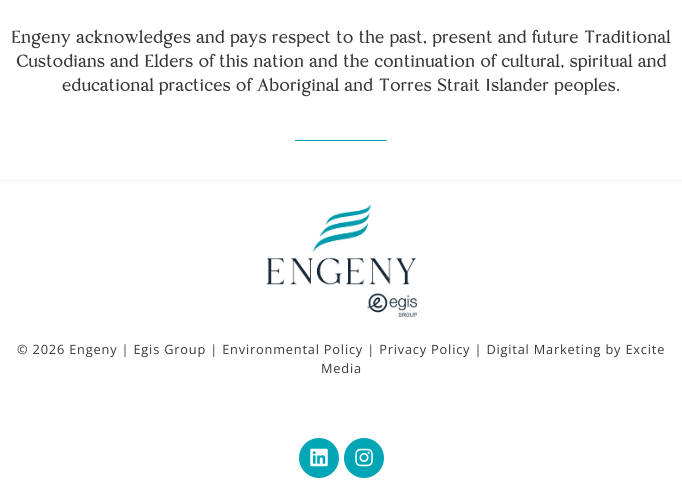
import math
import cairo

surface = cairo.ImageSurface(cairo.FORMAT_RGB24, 682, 484)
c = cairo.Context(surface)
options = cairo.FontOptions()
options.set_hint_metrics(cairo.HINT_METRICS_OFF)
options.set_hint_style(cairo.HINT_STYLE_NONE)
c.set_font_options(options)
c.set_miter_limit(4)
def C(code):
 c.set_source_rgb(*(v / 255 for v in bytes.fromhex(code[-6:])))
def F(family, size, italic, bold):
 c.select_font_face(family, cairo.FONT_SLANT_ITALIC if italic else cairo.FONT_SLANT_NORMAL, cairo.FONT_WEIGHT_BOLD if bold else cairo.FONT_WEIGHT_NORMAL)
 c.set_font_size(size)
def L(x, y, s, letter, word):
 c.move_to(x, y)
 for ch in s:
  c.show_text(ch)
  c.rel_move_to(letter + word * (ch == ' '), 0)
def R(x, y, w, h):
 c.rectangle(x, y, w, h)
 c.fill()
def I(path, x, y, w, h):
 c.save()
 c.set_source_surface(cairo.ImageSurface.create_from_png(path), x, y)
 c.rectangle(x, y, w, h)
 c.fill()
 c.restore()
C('ffffff')
c.paint()
F('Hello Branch',24,0,1)
C('383838')
L(11,43,'Engeny acknowledges and pays respect to the past, present and future Traditional',.9,0)
L(16,67,'Custodians and Elders of this nation and the continuation of cultural, spiritual and',.9,0)
L(62,91,'educational practices of Aboriginal and Torres Strait Islander peoples.',.9,0)
C('00a6b6')
R(295,140,92,1)
C('f0f0f0')
R(0,180,682,1)
I('1.png',266,204,151,113)
F('Open Sans',12.8,0,0)
C('383838')
L(17,354,'© 2026 Engeny | Egis Group | Environmental Policy | Privacy Policy | Digital Marketing by Excite',.8,0)
L(321,373,'Media',.8,0)
C('00a6b6')
c.new_path()
c.arc(319,458,20,0,2 * math.pi)
c.fill()
I('2.png',310,448,18,19)
c.arc(364,458,20,0,2 * math.pi)
c.fill()
I('3.png',355,448,18,19)
surface.write_to_png('o.png')
